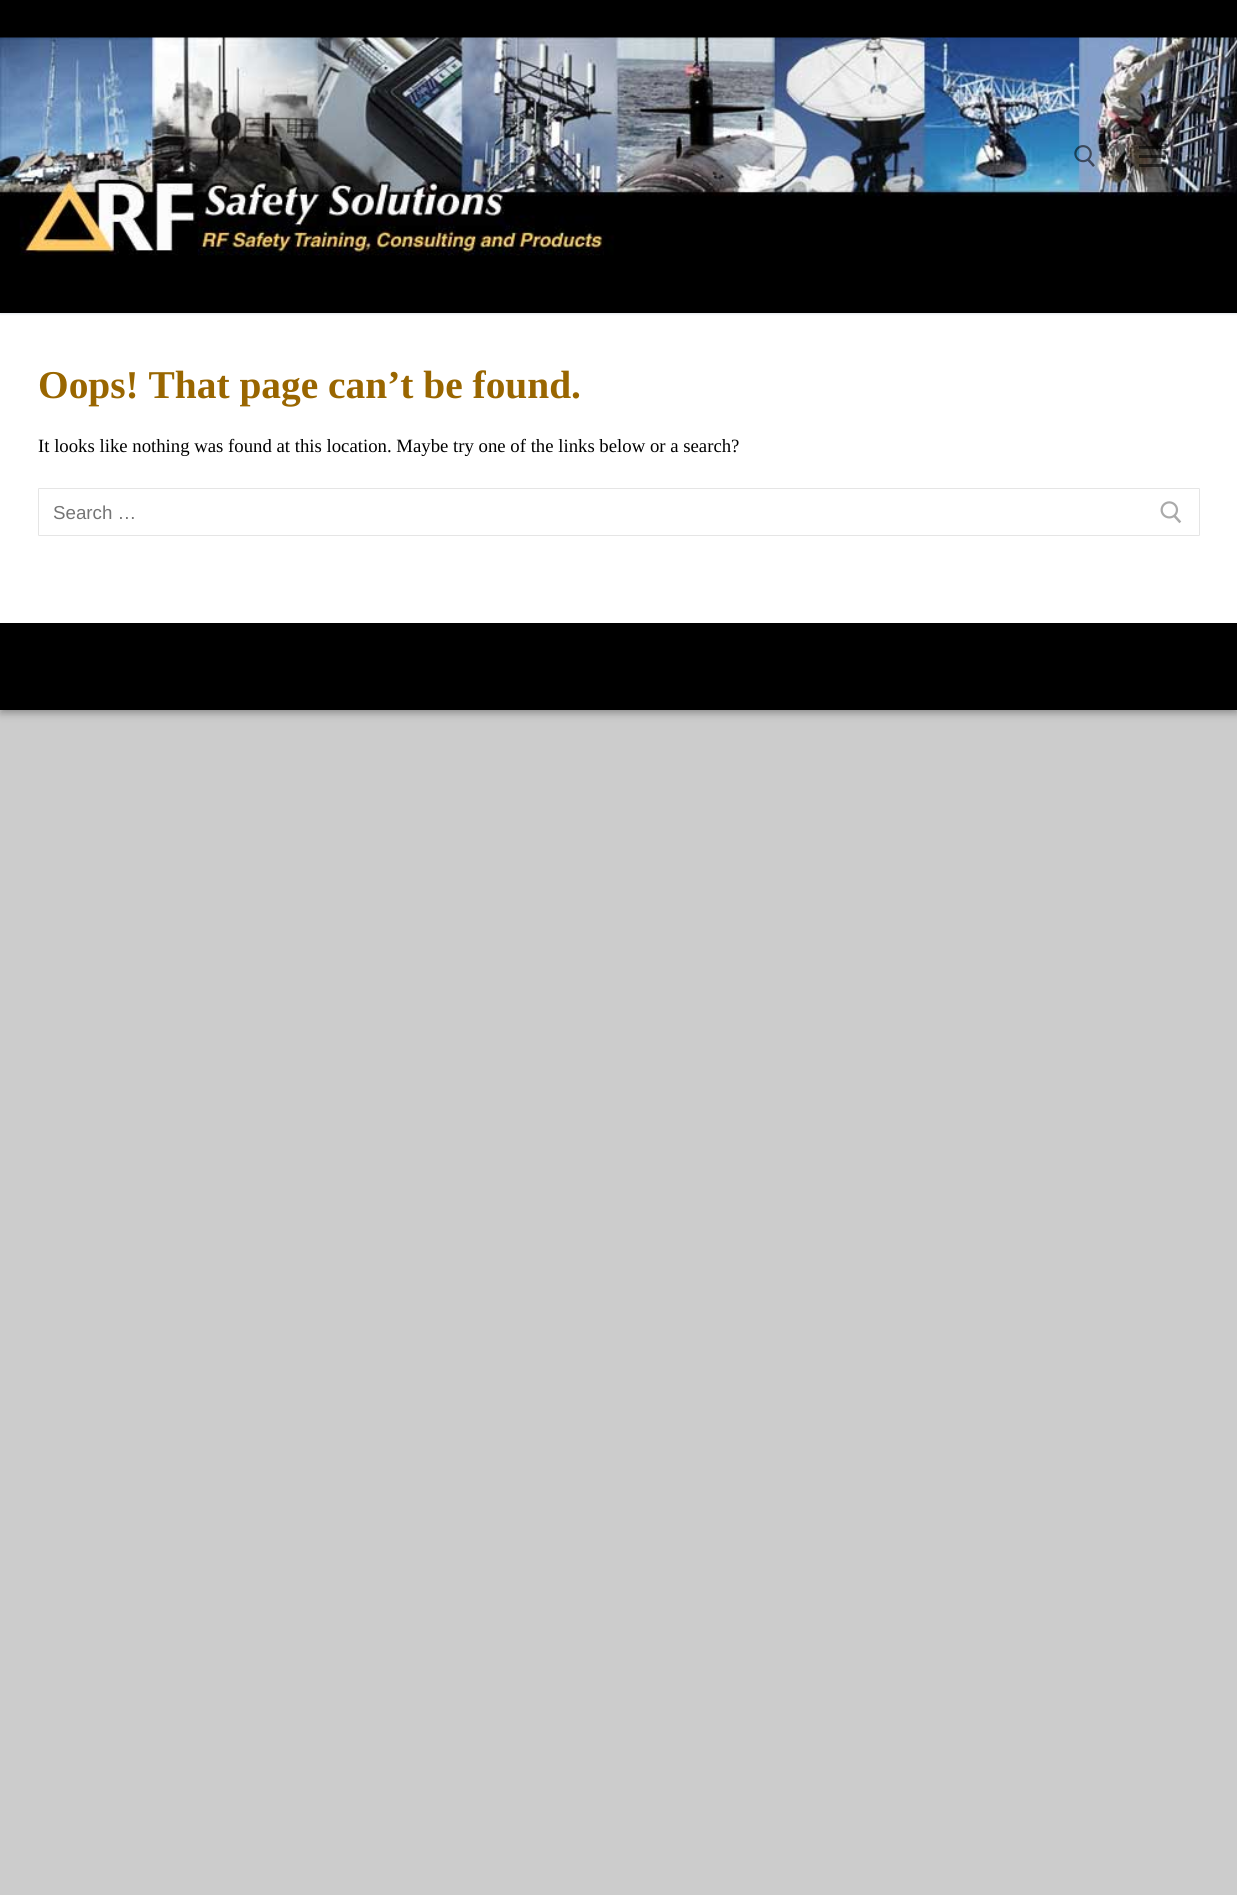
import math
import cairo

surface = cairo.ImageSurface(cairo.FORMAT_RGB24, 1237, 1895)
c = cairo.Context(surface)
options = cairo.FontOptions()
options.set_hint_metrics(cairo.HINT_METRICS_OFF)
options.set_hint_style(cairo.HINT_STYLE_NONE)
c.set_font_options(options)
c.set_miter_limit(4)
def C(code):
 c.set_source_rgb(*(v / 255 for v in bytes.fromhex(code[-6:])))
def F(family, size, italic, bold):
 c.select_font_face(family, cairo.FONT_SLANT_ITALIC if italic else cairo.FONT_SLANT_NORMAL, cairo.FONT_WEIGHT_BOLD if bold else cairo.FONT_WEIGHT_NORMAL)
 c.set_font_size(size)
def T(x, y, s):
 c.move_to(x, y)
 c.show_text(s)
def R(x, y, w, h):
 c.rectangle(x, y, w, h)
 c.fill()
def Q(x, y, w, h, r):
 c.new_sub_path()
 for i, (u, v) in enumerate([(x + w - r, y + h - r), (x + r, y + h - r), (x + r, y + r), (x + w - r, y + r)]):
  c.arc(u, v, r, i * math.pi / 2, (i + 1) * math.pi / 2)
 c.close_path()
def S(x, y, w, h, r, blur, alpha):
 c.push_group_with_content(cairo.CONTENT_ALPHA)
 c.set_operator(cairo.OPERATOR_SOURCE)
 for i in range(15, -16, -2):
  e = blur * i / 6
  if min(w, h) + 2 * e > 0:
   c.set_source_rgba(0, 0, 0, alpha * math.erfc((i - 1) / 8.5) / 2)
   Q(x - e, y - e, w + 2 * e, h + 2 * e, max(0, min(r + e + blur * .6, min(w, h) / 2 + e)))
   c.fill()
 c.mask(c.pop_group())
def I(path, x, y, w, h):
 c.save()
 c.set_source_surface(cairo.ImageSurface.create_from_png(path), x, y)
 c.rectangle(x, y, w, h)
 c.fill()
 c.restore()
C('ffffff')
c.paint()
I('1.png',0,710,1237,1185)
C('000000')
S(0,4,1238,710,0,4,.23)
S(5,9,1228,700,0,4,.16)
C('ffffff')
R(0,313,1237,310)
C('e1e5ea')
S(0,1,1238,313,0,1,1)
C('000000')
R(0,0,1237,313)
I('2.png',0,37,1237,219)
I('3.png',1074,145,21,22)
c.set_source_rgba(0,0,0,0.55)
R(1139,155,27,3)
R(1139,146,27,3)
R(1139,164,27,3)
F('Liberation Serif',39.4,0,1)
C('996600')
T(38,398,'Oops! That page can’t be found.')
F('Liberation Serif',18.75,0,0)
C('000000')
T(38,452,'It looks like nothing was found at this location. Maybe try one of the links below or a search?')
Q(38.5,488.5,1161,47,.5)
C('e5e5e5')
c.set_line_width(1)
c.stroke()
F('Liberation Sans',18.75,0,0)
C('757575')
T(53,519,'Search …')
I('4.png',1160,501,22,23)
C('000000')
R(0,623,1237,87)
surface.write_to_png('o.png')
